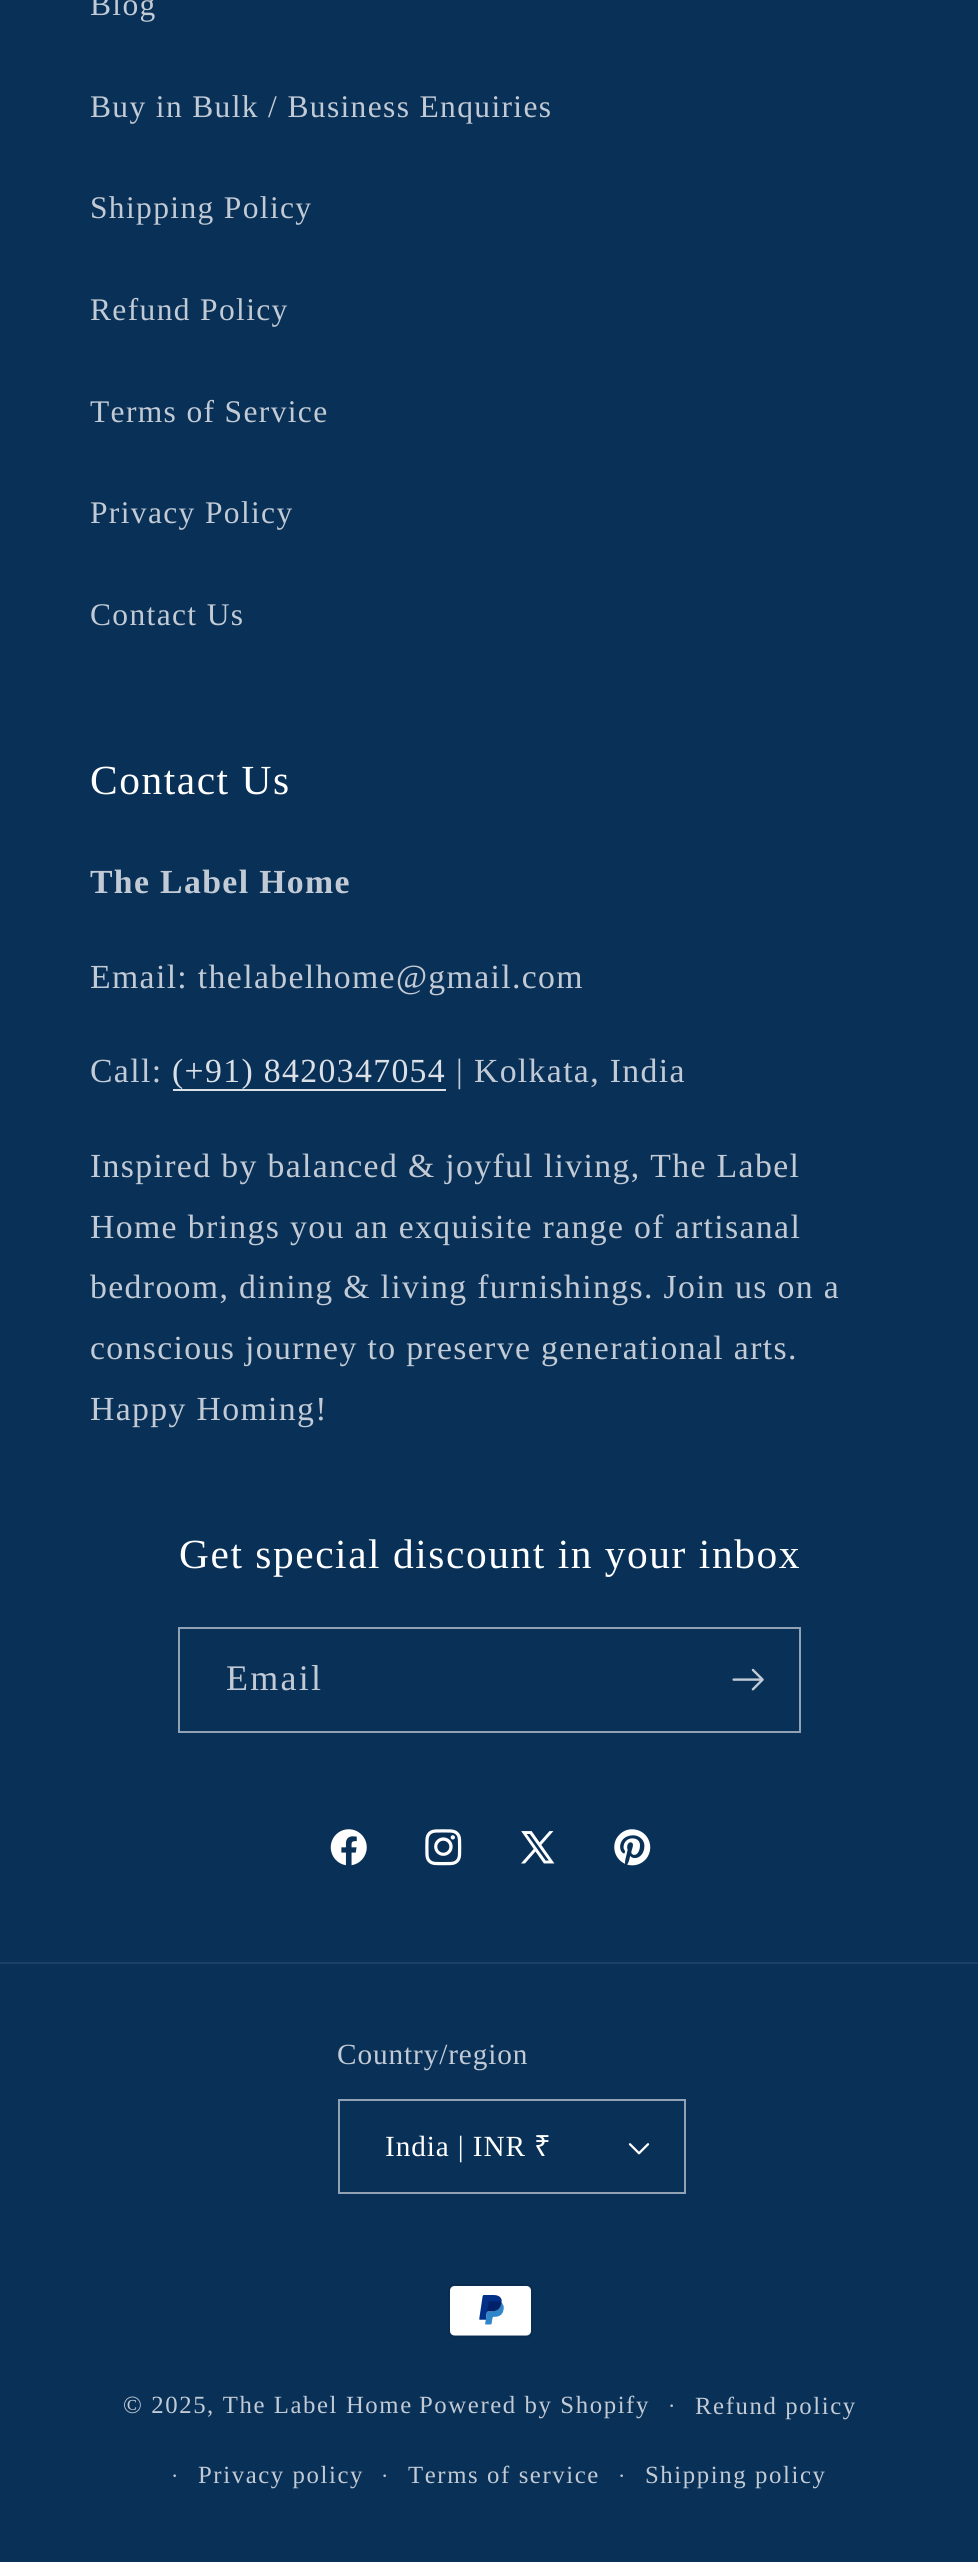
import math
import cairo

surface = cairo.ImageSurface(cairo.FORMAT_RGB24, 978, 2562)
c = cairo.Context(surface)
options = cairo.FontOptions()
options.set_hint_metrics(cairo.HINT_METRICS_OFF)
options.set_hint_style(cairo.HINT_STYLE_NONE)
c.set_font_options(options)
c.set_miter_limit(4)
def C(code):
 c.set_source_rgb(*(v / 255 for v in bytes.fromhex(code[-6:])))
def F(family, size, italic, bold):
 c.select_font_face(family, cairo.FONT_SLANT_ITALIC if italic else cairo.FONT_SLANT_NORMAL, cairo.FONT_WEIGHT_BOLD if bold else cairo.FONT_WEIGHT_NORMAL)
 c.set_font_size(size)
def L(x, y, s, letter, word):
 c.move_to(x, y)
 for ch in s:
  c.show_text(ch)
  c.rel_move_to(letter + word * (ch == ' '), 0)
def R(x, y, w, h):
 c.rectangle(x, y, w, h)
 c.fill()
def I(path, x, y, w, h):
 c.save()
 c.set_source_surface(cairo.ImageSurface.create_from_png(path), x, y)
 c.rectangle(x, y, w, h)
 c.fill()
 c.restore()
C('093057')
c.paint()
F('Liberation Serif',31.5,0,0)
C('c2cbd5')
L(90,15,'Blog',1.35,0)
L(90,117,'Buy in Bulk / Business Enquiries',1.35,0)
L(90,218,'Shipping Policy',1.35,0)
L(90,320,'Refund Policy',1.35,0)
L(90,422,'Terms of Service',1.35,0)
L(90,523,'Privacy Policy',1.35,0)
L(90,625,'Contact Us',1.35,0)
F('Liberation Serif',41.4,0,0)
C('ffffff')
L(90,794,'Contact Us',1.55,0)
F('Liberation Serif',33.75,0,1)
C('c2cbd5')
L(90,893,'The Label Home',1.35,0)
F('Liberation Serif',33.75,0,0)
L(90,988,'Email: thelabelhome@gmail.com',1.35,0)
L(90,1082,'Call:',1.35,0)
C('dae0e6')
R(173,1089,273,2)
L(172,1082,'(+91) 8420347054',1.35,0)
C('c2cbd5')
L(456,1082,'| Kolkata, India',1.35,0)
L(90,1177,'Inspired by balanced & joyful living, The Label',1.35,0)
L(90,1238,'Home brings you an exquisite range of artisanal',1.35,0)
L(90,1298,'bedroom, dining & living furnishings. Join us on a',1.35,0)
L(90,1359,'conscious journey to preserve generational arts.',1.35,0)
L(90,1420,'Happy Homing!',1.35,0)
F('Liberation Serif',41.4,0,0)
C('ffffff')
L(179,1568,'Get special discount in your inbox',1.55,0)
c.rectangle(179,1628,621,104)
C('90a2b3')
c.stroke()
F('Liberation Serif',36,0,0)
C('c2cbd5')
L(226,1690,'Email',2.25,0)
I('1.png',732,1668,32,23)
I('2.png',330,1829,37,37)
I('3.png',425,1829,37,37)
I('4.png',521,1831,34,33)
I('5.png',614,1829,37,37)
C('1d4164')
R(0,1962,978,2)
F('Liberation Serif',29.25,0,0)
C('c2cbd5')
L(337,2064,'Country/region',.9,0)
I('6.png',628,2143,22,12)
c.rectangle(339,2100,346,93)
C('90a2b3')
c.stroke()
C('ffffff')
L(385,2156,'India | INR',.9,0)
F('Noto Sans',29.25,0,0)
L(534,2156,'₹',.9,0)
I('7.png',448,2284,85,54)
F('Liberation Serif',24.75,0,0)
C('c2cbd5')
L(123,2413,'© 2025, The Label Home',1.6,0)
L(419,2413,'Powered by Shopify',1.6,0)
F('Liberation Serif',22,0,0)
L(668,2413,'·',1.6,0)
F('Liberation Serif',24.75,0,0)
L(695,2414,'Refund policy',1.6,0)
F('Liberation Serif',22,0,0)
L(171,2483,'·',1.6,0)
F('Liberation Serif',24.75,0,0)
L(198,2483,'Privacy policy',1.6,0)
F('Liberation Serif',22,0,0)
L(381,2483,'·',1.6,0)
F('Liberation Serif',24.75,0,0)
L(408,2483,'Terms of service',1.6,0)
F('Liberation Serif',22,0,0)
L(618,2483,'·',1.6,0)
F('Liberation Serif',24.75,0,0)
L(645,2483,'Shipping policy',1.6,0)
surface.write_to_png('o.png')
